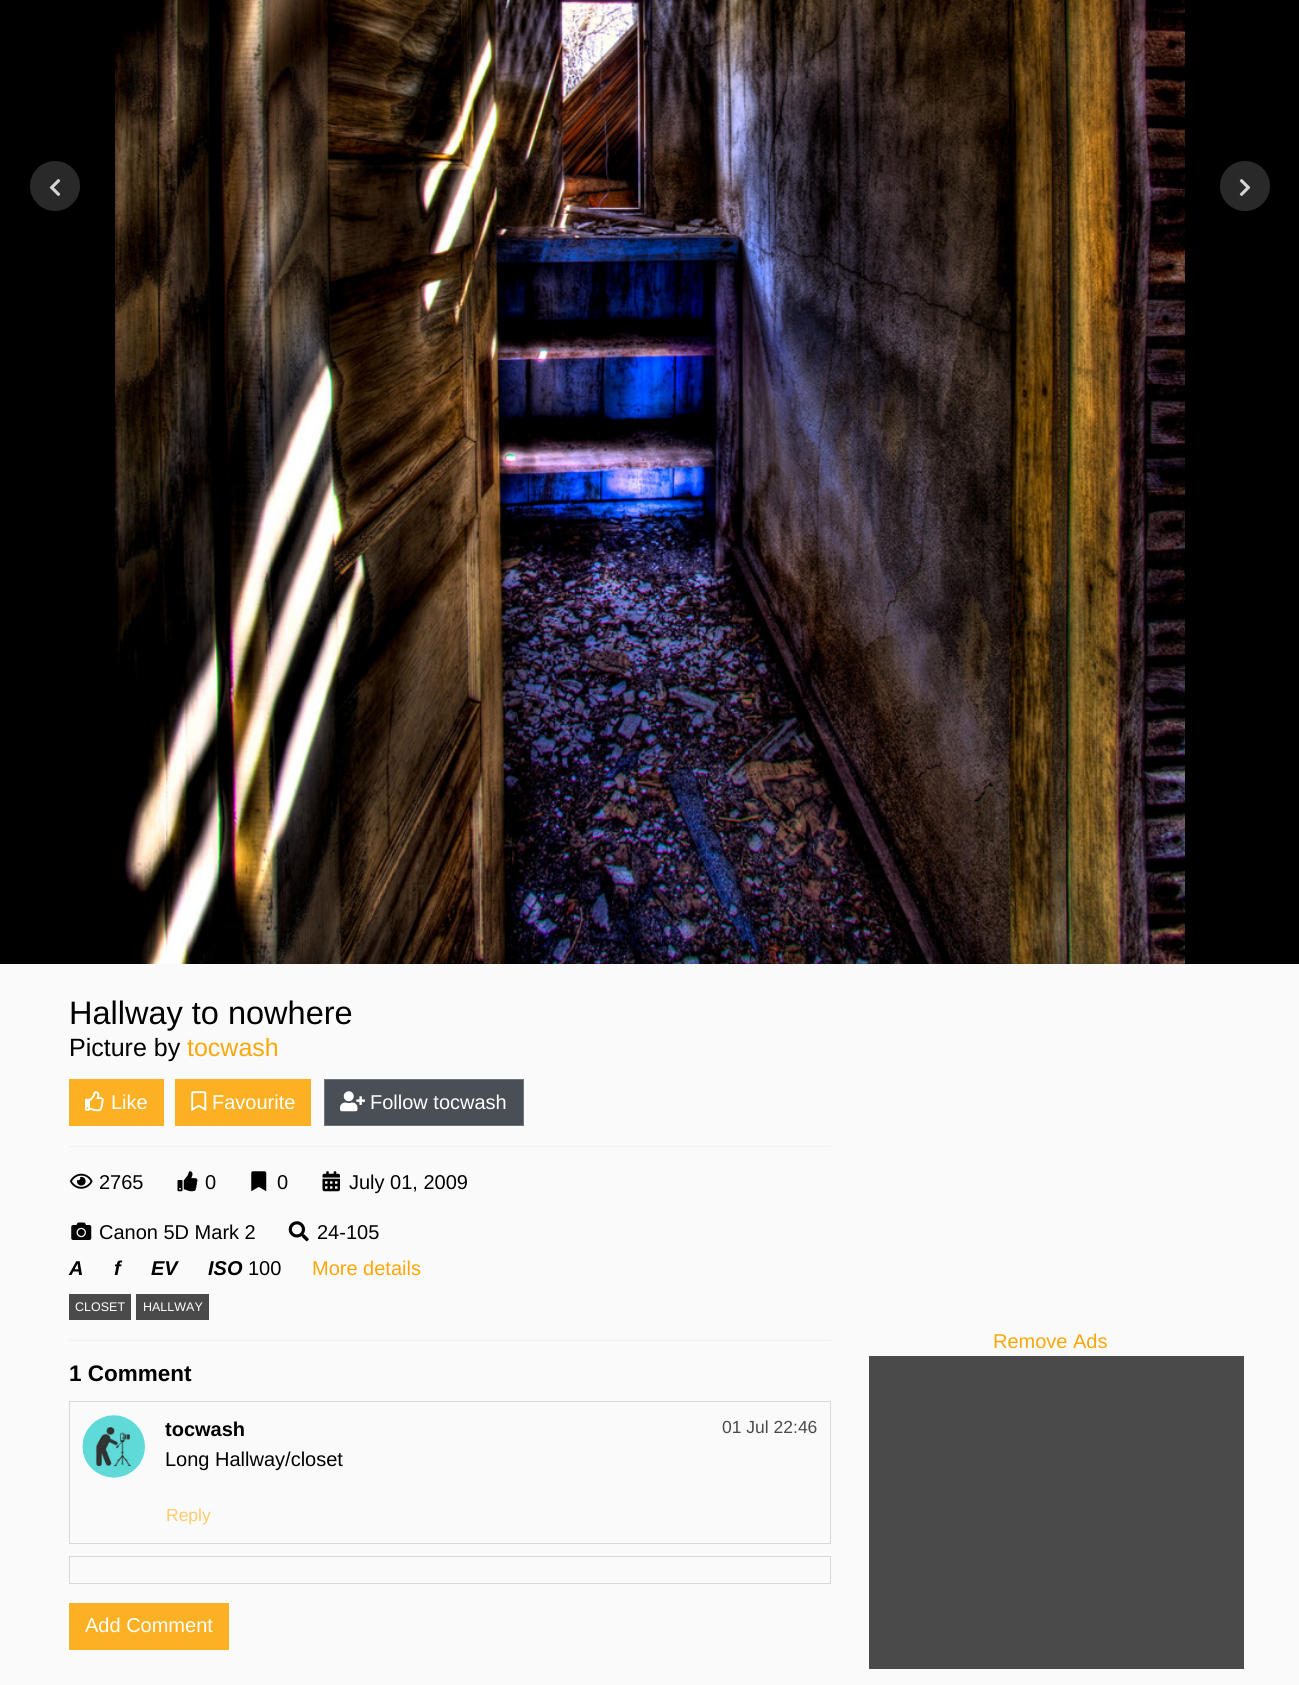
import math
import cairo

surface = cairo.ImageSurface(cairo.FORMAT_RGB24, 1299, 1685)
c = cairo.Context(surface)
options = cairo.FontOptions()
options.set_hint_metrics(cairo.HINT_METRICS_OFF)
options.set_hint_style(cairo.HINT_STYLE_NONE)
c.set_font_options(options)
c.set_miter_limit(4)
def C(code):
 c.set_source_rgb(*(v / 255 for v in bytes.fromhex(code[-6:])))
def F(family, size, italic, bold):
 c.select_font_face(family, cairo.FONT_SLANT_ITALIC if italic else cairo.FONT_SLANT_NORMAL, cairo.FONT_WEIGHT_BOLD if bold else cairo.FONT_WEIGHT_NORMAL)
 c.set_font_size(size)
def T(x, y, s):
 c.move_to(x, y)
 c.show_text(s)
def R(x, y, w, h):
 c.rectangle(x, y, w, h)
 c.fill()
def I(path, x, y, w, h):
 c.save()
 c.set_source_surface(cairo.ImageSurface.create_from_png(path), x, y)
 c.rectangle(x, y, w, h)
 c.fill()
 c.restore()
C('fafafa')
c.paint()
C('000000')
R(0,0,1299,964)
C('292929')
c.arc(55,186,25,0,2 * math.pi)
c.fill()
I('1.png',49,179,12,17)
I('2.png',115,0,1070,964)
c.arc(1245,186,25,0,2 * math.pi)
c.fill()
I('3.png',1239,179,12,17)
F('Liberation Sans',32.5,0,0)
C('000000')
T(69,1024,'Hallway to nowhere')
F('Liberation Sans',25,0,0)
T(69,1056,'Picture by')
C('fca709')
T(187,1056,'tocwash')
C('fcb023')
R(69,1079,95,47)
I('4.png',85,1091,19,21)
F('Liberation Sans',20,0,0)
C('ffffff')
T(111,1109,'Like')
C('fcb023')
R(175,1079,136,47)
I('5.png',191,1091,16,21)
C('ffffff')
T(212,1109,'Favourite')
C('494f54')
c.rectangle(324.5,1079.5,199,46)
c.fill_preserve()
C('6c757d')
c.set_line_width(1)
c.stroke()
I('6.png',340,1091,25,21)
C('ffffff')
T(370,1109,'Follow tocwash')
C('f2f2f2')
R(69,1146,762,1)
I('7.png',70,1173,23,16)
C('000000')
T(99,1189,'2765')
I('8.png',177,1171,21,21)
T(205,1189,'0')
I('9.png',251,1171,16,21)
T(277,1189,'0')
I('10.png',322,1171,18,21)
T(349,1189,'July 01, 2009')
I('11.png',71,1222,21,18)
T(99,1239,'Canon 5D Mark 2')
I('12.png',288,1221,21,21)
T(317,1239,'24-105')
F('Liberation Sans',20,1,1)
T(69,1275,'A')
T(114,1275,'f')
T(151,1275,'EV')
T(208,1275,'ISO')
F('Liberation Sans',20,0,0)
T(248,1275,'100')
C('fca709')
T(312,1275,'More details')
C('4a4a4a')
R(69,1294,62,26)
F('Liberation Sans',12.5,0,0)
C('ffffff')
T(75,1311,'CLOSET')
C('4a4a4a')
R(136,1294,73,26)
C('ffffff')
T(143,1311,'HALLWAY')
C('f2f2f2')
R(69,1340,762,1)
F('Liberation Sans',22.5,0,1)
C('000000')
T(69,1381,'1 Comment')
c.rectangle(69.5,1401.5,761,142)
C('d8d8d8')
c.stroke()
I('13.png',82,1415,63,63)
F('Liberation Sans',20,0,1)
C('000000')
T(165,1436,'tocwash')
F('Liberation Sans',17.5,0,0)
C('4a4a4a')
T(722,1433,'01 Jul 22:46')
F('Liberation Sans',20,0,0)
C('000000')
T(165,1466,'Long Hallway/closet')
F('Liberation Sans',17.5,0,0)
C('fdcb6e')
T(166,1521,'Reply')
c.rectangle(69.5,1556.5,761,27)
C('d8d8d8')
c.stroke()
C('fcb023')
R(69,1603,160,47)
F('Liberation Sans',20,0,0)
C('ffffff')
T(85,1632,'Add Comment')
C('fca709')
T(993,1348,'Remove Ads')
C('4a4a4a')
R(869,1356,375,313)
surface.write_to_png('o.png')
